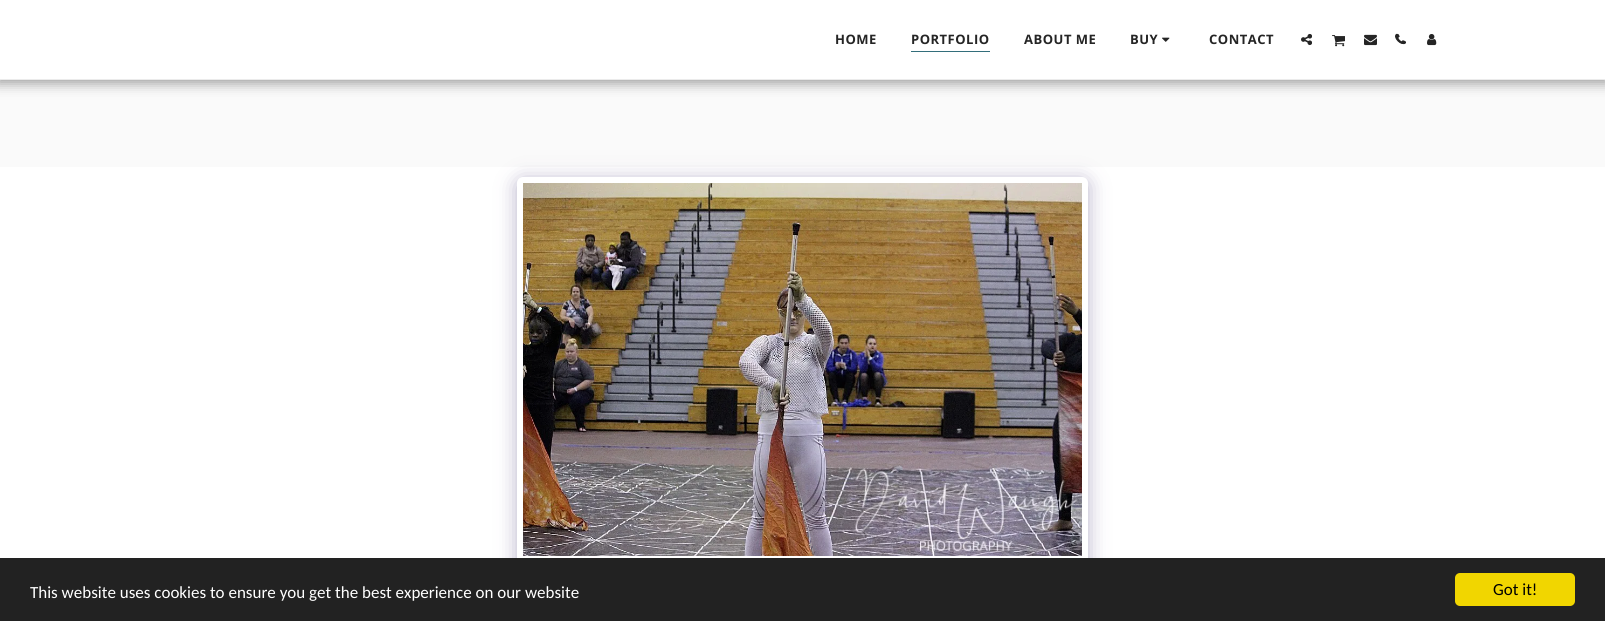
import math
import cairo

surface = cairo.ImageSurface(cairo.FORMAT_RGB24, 1605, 621)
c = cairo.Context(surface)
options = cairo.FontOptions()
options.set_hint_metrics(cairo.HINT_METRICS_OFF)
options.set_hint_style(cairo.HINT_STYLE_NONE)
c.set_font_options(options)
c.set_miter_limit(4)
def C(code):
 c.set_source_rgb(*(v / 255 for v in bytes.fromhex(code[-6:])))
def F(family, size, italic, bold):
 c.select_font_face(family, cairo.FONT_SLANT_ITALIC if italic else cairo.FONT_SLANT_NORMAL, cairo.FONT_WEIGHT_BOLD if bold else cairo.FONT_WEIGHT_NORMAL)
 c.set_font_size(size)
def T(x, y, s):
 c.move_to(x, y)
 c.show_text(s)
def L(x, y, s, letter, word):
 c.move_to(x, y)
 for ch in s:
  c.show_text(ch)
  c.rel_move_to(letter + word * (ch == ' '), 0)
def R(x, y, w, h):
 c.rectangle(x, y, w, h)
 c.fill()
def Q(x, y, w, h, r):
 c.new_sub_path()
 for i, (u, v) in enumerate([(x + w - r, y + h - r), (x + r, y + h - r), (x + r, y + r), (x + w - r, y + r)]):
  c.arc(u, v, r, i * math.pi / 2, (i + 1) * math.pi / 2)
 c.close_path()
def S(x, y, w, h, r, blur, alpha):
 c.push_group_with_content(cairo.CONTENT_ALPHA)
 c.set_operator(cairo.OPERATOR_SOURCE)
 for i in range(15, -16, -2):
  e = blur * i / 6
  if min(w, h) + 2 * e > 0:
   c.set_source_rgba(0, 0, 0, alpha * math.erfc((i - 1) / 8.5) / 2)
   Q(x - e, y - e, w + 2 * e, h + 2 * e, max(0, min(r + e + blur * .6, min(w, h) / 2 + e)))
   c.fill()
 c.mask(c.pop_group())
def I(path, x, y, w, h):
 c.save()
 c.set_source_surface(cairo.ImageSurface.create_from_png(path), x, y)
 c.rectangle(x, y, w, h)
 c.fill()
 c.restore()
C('ffffff')
c.paint()
C('fafafa')
R(0,80,1605,87)
C('000000')
S(-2,0,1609,84,0,6,.35)
C('ffffff')
R(0,0,1605,79)
C('ebebeb')
R(0,79,1605,1)
F('Open Sans',13,0,1)
C('252525')
L(835,44,'HOME',.5,0)
L(911,44,'PORTFOLIO',.5,0)
C('336e7b')
R(911,51,79,1)
C('252525')
L(1024,44,'ABOUT ME',.5,0)
L(1130,44,'BUY',.5,0)
I('1.png',1162,37,8,5)
L(1209,44,'CONTACT',.5,0)
I('2.png',1301,33,11,13)
I('3.png',1332,35,13,12)
I('4.png',1364,34,13,12)
I('5.png',1396,34,10,11)
I('6.png',1395,33,11,11)
I('7.png',1427,34,10,12)
C('4d3f7a')
S(517,180,571,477,6,10,.4)
C('ffffff')
Q(517,177,571,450,6)
c.fill()
I('8.png',523,183,559,373)
C('222222')
R(0,558,1605,63)
F('Carlito',17,0,0)
C('ffffff')
T(30,598,'This website uses cookies to ensure you get the best experience on our website')
C('f1d600')
Q(1455,573,120,33,5)
c.fill()
C('000000')
T(1493,595,'Got it!')
surface.write_to_png('o.png')
